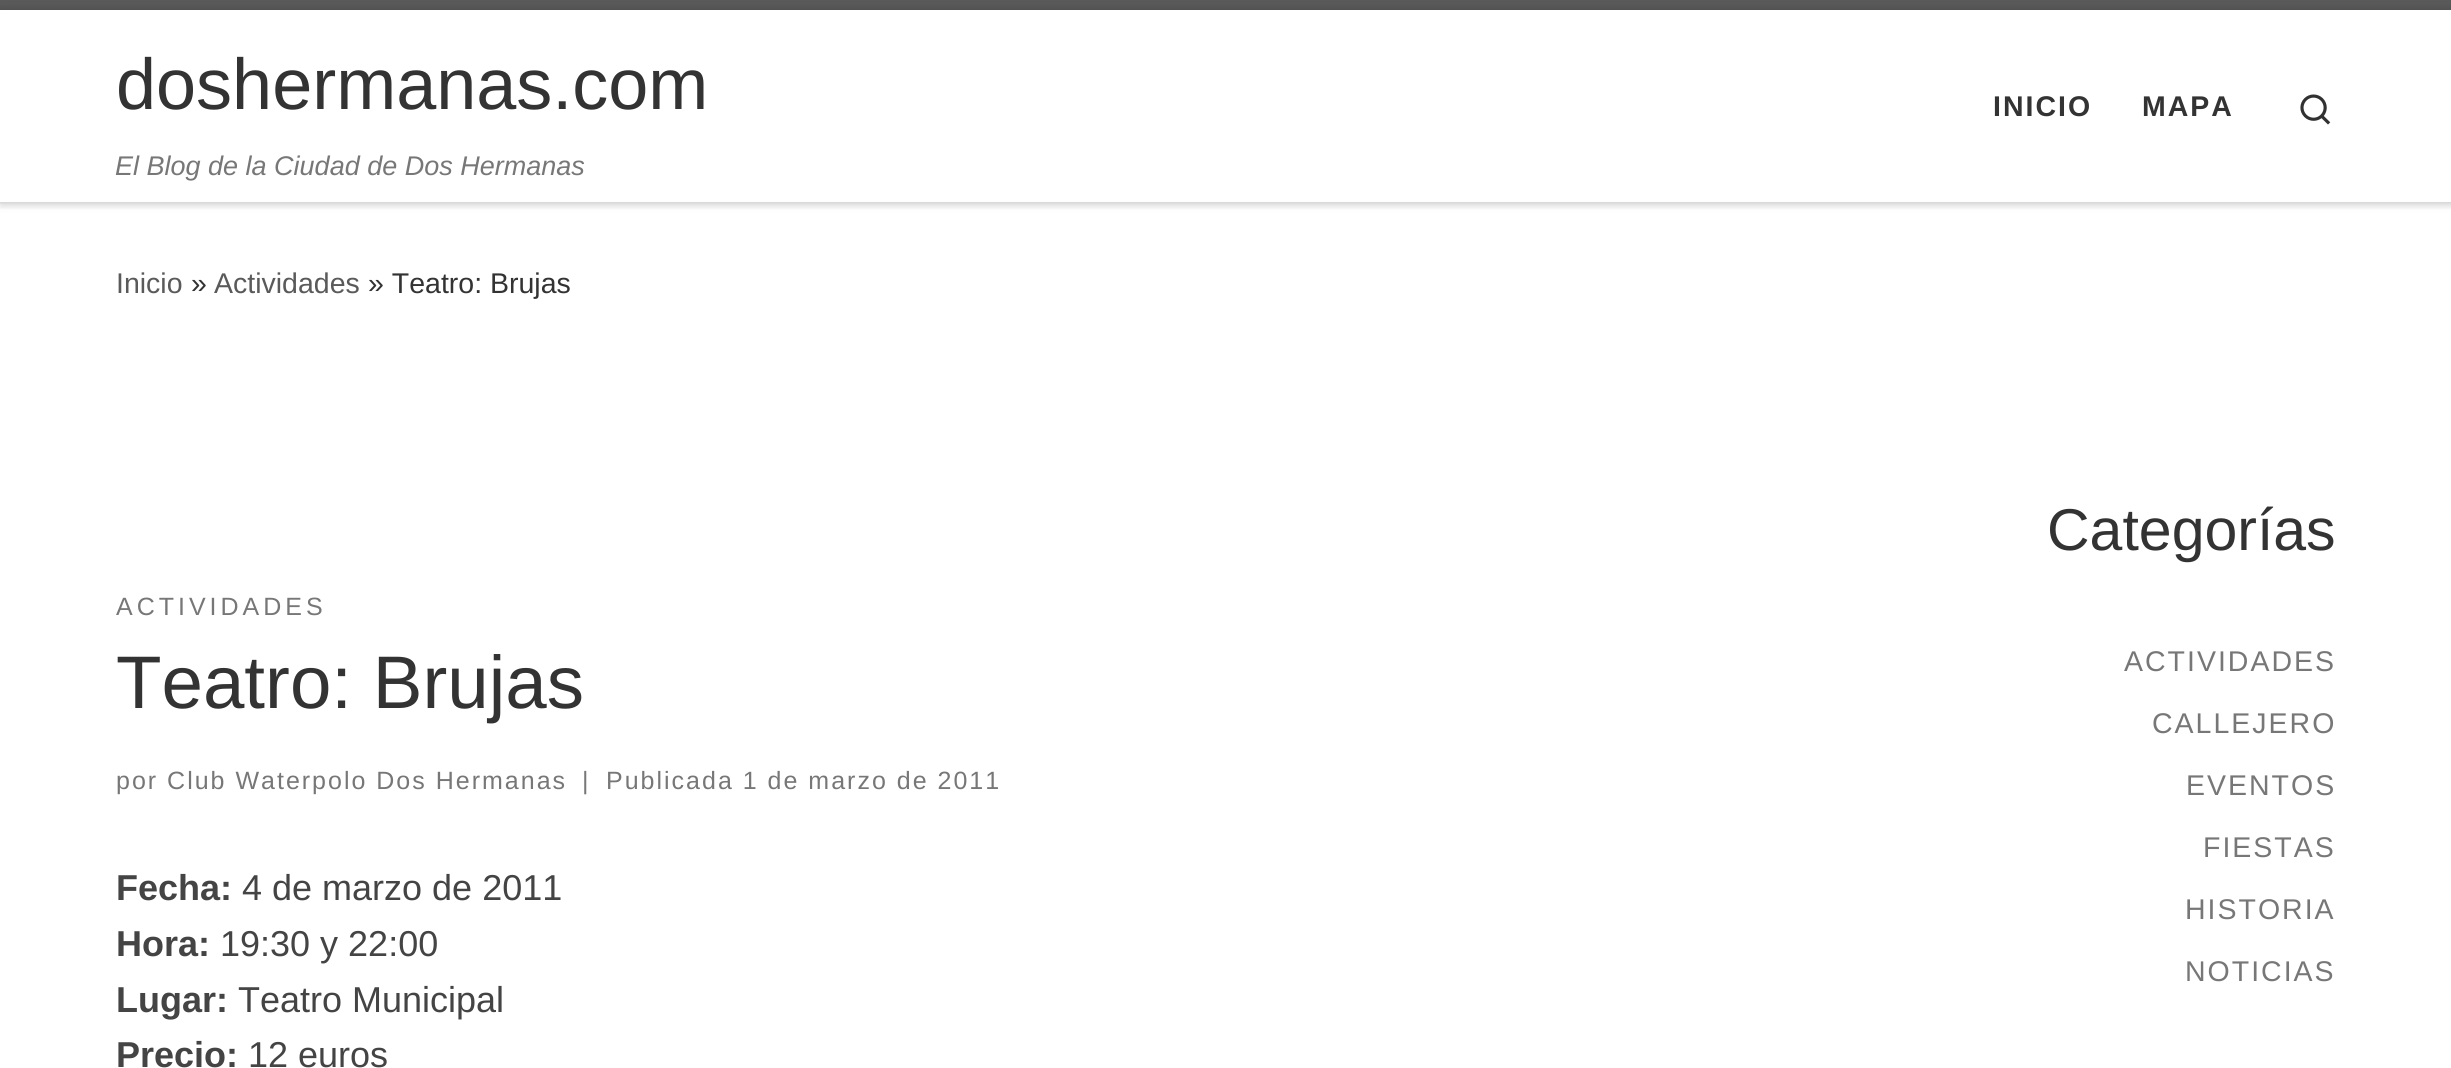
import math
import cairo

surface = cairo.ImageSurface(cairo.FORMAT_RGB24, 2451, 1068)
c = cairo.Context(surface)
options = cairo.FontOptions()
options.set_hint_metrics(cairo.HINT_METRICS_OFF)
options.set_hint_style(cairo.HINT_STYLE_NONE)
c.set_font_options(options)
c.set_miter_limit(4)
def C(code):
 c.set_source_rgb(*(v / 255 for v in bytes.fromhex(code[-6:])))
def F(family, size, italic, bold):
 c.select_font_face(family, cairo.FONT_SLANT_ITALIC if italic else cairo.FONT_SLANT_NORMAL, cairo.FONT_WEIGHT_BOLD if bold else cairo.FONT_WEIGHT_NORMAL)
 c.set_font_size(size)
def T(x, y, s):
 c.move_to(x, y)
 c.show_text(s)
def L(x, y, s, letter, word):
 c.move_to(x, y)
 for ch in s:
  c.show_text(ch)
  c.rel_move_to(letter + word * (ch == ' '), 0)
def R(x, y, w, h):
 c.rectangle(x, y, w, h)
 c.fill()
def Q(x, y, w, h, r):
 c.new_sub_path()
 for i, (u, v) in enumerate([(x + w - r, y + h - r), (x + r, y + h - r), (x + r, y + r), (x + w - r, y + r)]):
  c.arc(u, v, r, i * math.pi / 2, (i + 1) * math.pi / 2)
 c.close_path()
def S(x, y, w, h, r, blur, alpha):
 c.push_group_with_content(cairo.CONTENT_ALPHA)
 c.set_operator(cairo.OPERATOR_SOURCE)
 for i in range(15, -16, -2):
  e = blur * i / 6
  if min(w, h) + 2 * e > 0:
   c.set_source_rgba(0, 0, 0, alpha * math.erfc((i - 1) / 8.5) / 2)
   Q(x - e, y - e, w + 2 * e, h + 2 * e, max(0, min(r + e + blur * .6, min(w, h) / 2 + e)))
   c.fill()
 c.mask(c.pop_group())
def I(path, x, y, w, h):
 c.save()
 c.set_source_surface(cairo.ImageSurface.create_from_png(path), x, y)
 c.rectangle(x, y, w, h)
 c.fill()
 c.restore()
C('ffffff')
c.paint()
c.save()
c.rectangle(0,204,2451,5)
c.clip()
C('666666')
S(0,4,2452,204,0,2,.08)
c.restore()
C('5a5a5a')
R(0,0,2451,10)
C('efefef')
R(0,202,2451,2)
c.save()
c.set_fill_rule(cairo.FILL_RULE_EVEN_ODD)
c.new_path()
c.move_to(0,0)
c.line_to(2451,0)
c.line_to(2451,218)
c.line_to(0,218)
c.close_path()
c.move_to(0,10)
c.line_to(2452,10)
c.line_to(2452,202)
c.line_to(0,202)
c.close_path()
c.clip()
C('000000')
S(0,10,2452,192,0,5,.2)
c.restore()
F('Liberation Sans',72,0,0)
C('333333')
T(116,109,'doshermanas.com')
F('Liberation Sans',27,1,0)
C('777777')
T(115,175,'El Blog de la Ciudad de Dos Hermanas')
F('Liberation Sans',28.5,0,1)
C('333333')
L(1993,116,'INICIO',2,0)
L(2142,116,'MAPA',2,0)
I('1.png',2300,94,31,31)
F('Liberation Sans',28.5,0,0)
C('5a5a5a')
T(116,293,'Inicio')
C('333333')
T(191,293,'»')
C('5a5a5a')
T(214,293,'Actividades')
C('333333')
T(368,293,'» Teatro: Brujas')
F('Liberation Sans',25,0,0)
C('777777')
L(116,615,'ACTIVIDADES',4,0)
F('Liberation Sans',74.5,0,0)
C('333333')
T(116,708,'Teatro: Brujas')
F('Liberation Sans',25,0,0)
C('777777')
L(116,789,'por Club Waterpolo Dos Hermanas',2,0)
L(582,789,'|',2,0)
L(606,789,'Publicada 1 de marzo de 2011',2,0)
F('Liberation Sans',36,0,1)
C('444444')
T(116,900,'Fecha:')
F('Liberation Sans',36,0,0)
T(242,900,'4 de marzo de 2011')
F('Liberation Sans',36,0,1)
T(116,956,'Hora:')
F('Liberation Sans',36,0,0)
T(220,956,'19:30 y 22:00')
F('Liberation Sans',36,0,1)
T(116,1012,'Lugar:')
F('Liberation Sans',36,0,0)
T(238,1012,'Teatro Municipal')
F('Liberation Sans',36,0,1)
T(116,1067,'Precio:')
F('Liberation Sans',36,0,0)
T(248,1067,'12 euros')
F('Liberation Sans',59,0,0)
C('333333')
T(2047,550,'Categorías')
F('Liberation Sans',28.5,0,0)
C('777777')
L(2124,671,'ACTIVIDADES',2,0)
L(2152,733,'CALLEJERO',2,0)
L(2186,795,'EVENTOS',2,0)
L(2203,857,'FIESTAS',2,0)
L(2185,919,'HISTORIA',2,0)
L(2185,981,'NOTICIAS',2,0)
surface.write_to_png('o.png')
